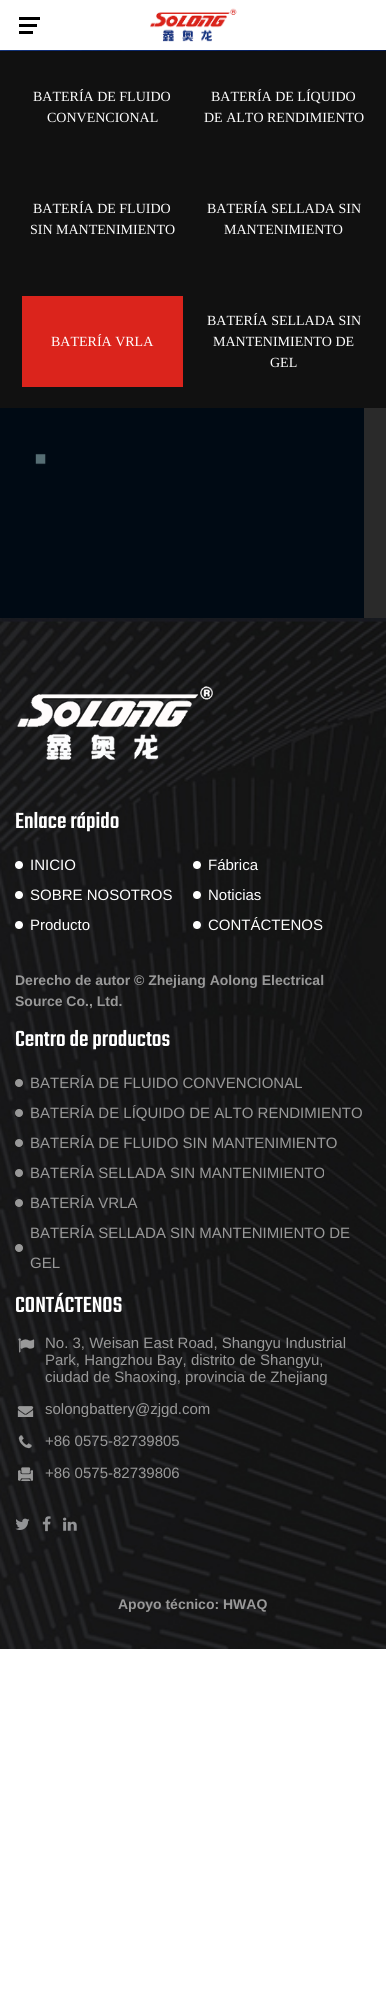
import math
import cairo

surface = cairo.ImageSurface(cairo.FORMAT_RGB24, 386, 2014)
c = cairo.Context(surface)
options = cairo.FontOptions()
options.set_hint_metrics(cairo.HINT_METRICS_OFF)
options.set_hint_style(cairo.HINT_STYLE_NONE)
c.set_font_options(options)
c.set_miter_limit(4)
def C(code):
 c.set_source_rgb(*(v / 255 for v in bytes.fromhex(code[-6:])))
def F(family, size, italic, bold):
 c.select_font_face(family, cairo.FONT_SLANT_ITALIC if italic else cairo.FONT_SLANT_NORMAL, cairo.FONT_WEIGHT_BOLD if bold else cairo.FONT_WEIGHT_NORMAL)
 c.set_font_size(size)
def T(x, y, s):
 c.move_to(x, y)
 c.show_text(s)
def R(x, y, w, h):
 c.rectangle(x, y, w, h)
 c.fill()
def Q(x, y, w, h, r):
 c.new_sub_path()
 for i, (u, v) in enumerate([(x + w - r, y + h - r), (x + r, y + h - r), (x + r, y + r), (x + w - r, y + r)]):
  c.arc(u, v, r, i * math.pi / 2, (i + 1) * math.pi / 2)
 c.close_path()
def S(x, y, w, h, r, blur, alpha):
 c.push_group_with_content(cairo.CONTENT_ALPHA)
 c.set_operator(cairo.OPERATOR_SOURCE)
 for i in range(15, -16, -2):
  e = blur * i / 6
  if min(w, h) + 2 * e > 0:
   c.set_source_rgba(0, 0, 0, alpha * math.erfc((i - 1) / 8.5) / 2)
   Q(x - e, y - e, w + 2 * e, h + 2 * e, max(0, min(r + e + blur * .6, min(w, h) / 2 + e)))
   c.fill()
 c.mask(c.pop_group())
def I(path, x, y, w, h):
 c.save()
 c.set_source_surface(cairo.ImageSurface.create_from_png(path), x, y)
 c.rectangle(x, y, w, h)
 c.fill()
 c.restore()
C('ffffff')
c.paint()
I('2.png',0,50,386,1)
C('111111')
R(0,51,386,357)
C('000000')
S(0,0,386,50,0,2.5,.3)
C('ffffff')
R(0,0,386,50)
C('000000')
R(19,24,18,3)
R(19,17,21,3)
R(19,31,14,3)
I('1.png',150,8,87,34)
F('Liberation Serif',14,0,0)
C('ffffff')
T(33,101,'BATERÍA DE FLUIDO')
T(47,122,'CONVENCIONAL')
T(211,101,'BATERÍA DE LÍQUIDO')
T(204,122,'DE ALTO RENDIMIENTO')
T(33,213,'BATERÍA DE FLUIDO')
T(30,234,'SIN MANTENIMIENTO')
T(207,213,'BATERÍA SELLADA SIN')
T(224,234,'MANTENIMIENTO')
C('db241c')
R(22,296,161,91)
C('ffffff')
T(51,346,'BATERÍA VRLA')
T(207,325,'BATERÍA SELLADA SIN')
T(213,346,'MANTENIMIENTO DE')
T(270,367,'GEL')
C('2a2a2a')
R(364,408,22,210)
I('3.png',0,408,364,210)
I('4.png',0,618,386,1031)
I('5.png',17,686,196,74)
F('Teko Medium',24,0,0)
C('ffffff')
T(15,828,'Enlace rápido')
I('6.png',15,861,8,8)
F('Liberation Sans',15,0,0)
T(30,870,'INICIO')
I('6.png',193,861,8,8)
T(208,870,'Fábrica')
I('6.png',15,891,8,8)
T(30,900,'SOBRE NOSOTROS')
I('6.png',193,891,8,8)
T(208,900,'Noticias')
I('6.png',15,921,8,8)
T(30,930,'Producto')
I('6.png',193,921,8,8)
T(208,930,'CONTÁCTENOS')
F('Liberation Sans',14,0,1)
C('999999')
T(15,985,'Derecho de autor © Zhejiang Aolong Electrical')
T(15,1006,'Source Co., Ltd.')
F('Teko Medium',24,0,0)
C('ffffff')
T(15,1046,'Centro de productos')
I('7.png',15,1079,8,8)
F('Liberation Sans',15,0,0)
C('999999')
T(30,1088,'BATERÍA DE FLUIDO CONVENCIONAL')
I('7.png',15,1109,8,8)
T(30,1118,'BATERÍA DE LÍQUIDO DE ALTO RENDIMIENTO')
I('7.png',15,1139,8,8)
T(30,1148,'BATERÍA DE FLUIDO SIN MANTENIMIENTO')
I('7.png',15,1169,8,8)
T(30,1178,'BATERÍA SELLADA SIN MANTENIMIENTO')
I('7.png',15,1199,8,8)
T(30,1208,'BATERÍA VRLA')
I('7.png',15,1244,8,8)
T(30,1238,'BATERÍA SELLADA SIN MANTENIMIENTO DE')
T(30,1268,'GEL')
F('Teko Medium',24,0,0)
C('ffffff')
T(15,1312,'CONTÁCTENOS')
I('8.png',18,1338,17,15)
F('Liberation Sans',15,0,0)
C('999999')
T(45,1348,'No. 3, Weisan East Road, Shangyu Industrial')
T(45,1365,'Park, Hangzhou Bay, distrito de Shangyu,')
T(45,1382,'ciudad de Shaoxing, provincia de Zhejiang')
I('9.png',17,1406,17,11)
T(45,1414,'solongbattery@zjgd.com')
I('10.png',18,1435,14,14)
T(45,1446,'+86 0575-82739805')
I('11.png',18,1467,15,14)
T(45,1478,'+86 0575-82739806')
I('12.png',15,1518,15,12)
I('13.png',42,1516,9,16)
I('14.png',63,1517,14,14)
F('Liberation Sans',14,0,1)
T(118,1609,'Apoyo técnico: HWAQ')
surface.write_to_png('o.png')
